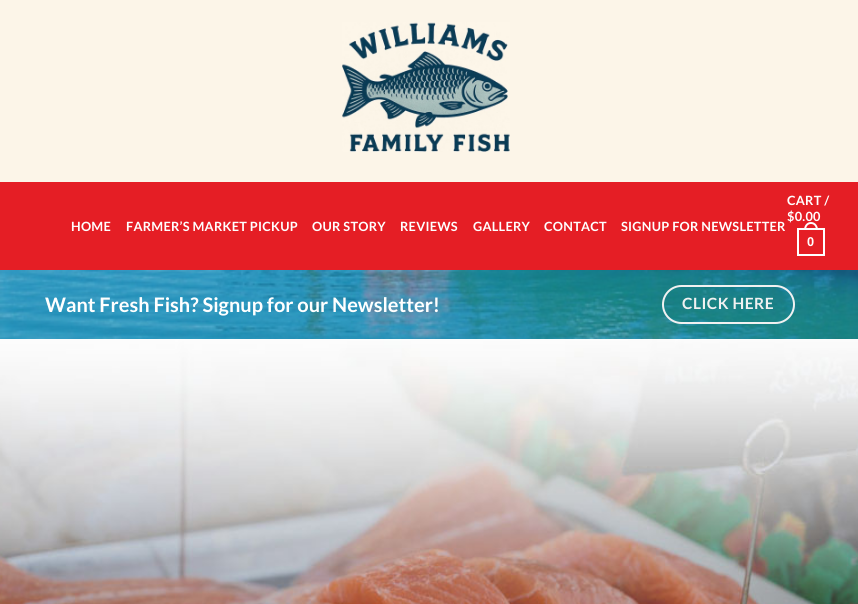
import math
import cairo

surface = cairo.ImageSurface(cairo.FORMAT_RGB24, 858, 604)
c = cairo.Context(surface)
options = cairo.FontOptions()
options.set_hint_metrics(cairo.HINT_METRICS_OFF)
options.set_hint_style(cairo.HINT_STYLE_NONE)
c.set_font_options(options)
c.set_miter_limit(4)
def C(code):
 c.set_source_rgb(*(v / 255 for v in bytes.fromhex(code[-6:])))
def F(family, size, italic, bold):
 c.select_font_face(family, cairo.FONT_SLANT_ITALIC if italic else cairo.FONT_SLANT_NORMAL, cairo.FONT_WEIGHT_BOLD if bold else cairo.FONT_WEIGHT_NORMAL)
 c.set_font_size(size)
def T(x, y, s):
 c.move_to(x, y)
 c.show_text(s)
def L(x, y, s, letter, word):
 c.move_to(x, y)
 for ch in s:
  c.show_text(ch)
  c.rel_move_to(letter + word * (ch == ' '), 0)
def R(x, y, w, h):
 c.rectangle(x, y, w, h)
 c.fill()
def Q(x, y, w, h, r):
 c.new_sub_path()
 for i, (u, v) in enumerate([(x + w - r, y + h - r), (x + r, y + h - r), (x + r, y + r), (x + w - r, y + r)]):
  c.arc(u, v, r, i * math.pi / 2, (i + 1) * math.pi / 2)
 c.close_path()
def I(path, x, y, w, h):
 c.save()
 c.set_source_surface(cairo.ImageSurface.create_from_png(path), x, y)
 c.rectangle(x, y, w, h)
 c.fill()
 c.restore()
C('ffffff')
c.paint()
C('fcf5e8')
R(0,0,858,182)
I('1.png',342,22,168,130)
C('e51e25')
R(0,182,858,88)
F('Lato',12.75,0,1)
C('ffffff')
L(71,231,'HOME',.25,0)
L(126,231,'FARMER’S MARKET PICKUP',.25,0)
L(312,231,'OUR STORY',.25,0)
L(400,231,'REVIEWS',.25,0)
L(473,231,'GALLERY',.25,0)
L(544,231,'CONTACT',.25,0)
L(621,231,'SIGNUP FOR NEWSLETTER',.25,0)
L(787,205,'CART /',.25,0)
L(787,221,'$0.00',.25,0)
c.rectangle(798,229,26,26)
c.stroke()
c.set_fill_rule(cairo.FILL_RULE_EVEN_ODD)
c.new_path()
c.move_to(811,222)
c.curve_to(815.5,222,818,226,818,230)
c.line_to(804,230)
c.curve_to(804,226,806.5,222,811,222)
c.close_path()
c.move_to(811,224)
c.curve_to(814.5,224,816,227,816,230)
c.line_to(806,230)
c.curve_to(806,227,807.5,224,811,224)
c.close_path()
c.fill()
F('Liberation Sans',12.75,0,1)
L(807,246,'0',.25,0)
I('2.png',0,270,858,69)
F('Lato',20,0,1)
T(45,312,'Want Fresh Fish? Signup for our Newsletter!')
Q(663,286,131,37,18.5)
C('f1f1f1')
c.stroke()
F('Lato',15.5,0,1)
L(682,309,'CLICK HERE',.5,0)
I('3.png',0,339,858,265)
surface.write_to_png('o.png')
